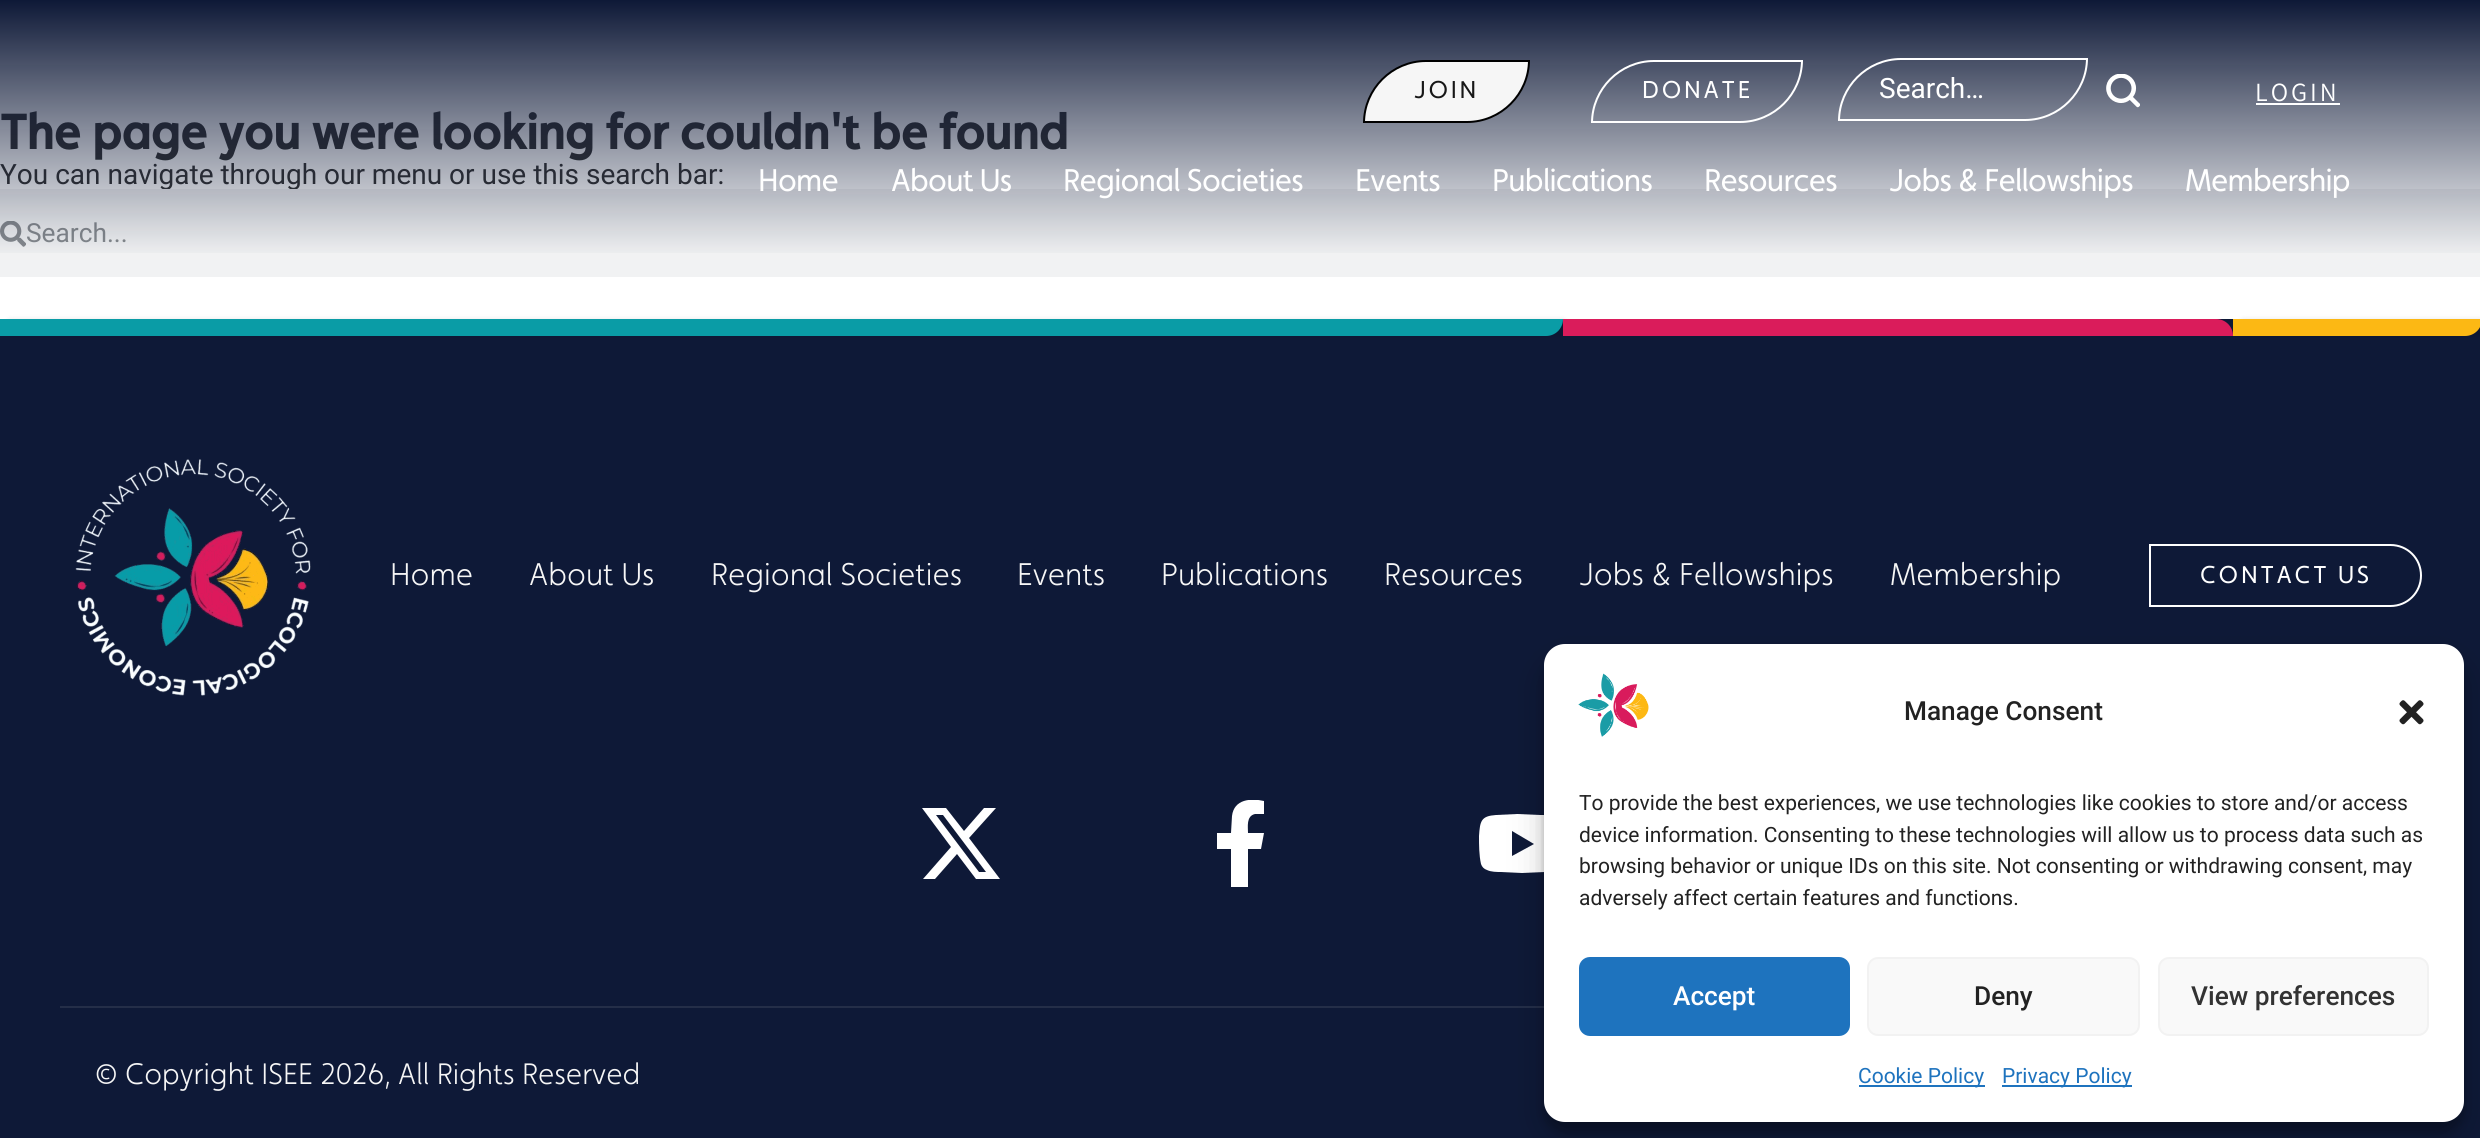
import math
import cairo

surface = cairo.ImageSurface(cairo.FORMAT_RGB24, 2480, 1138)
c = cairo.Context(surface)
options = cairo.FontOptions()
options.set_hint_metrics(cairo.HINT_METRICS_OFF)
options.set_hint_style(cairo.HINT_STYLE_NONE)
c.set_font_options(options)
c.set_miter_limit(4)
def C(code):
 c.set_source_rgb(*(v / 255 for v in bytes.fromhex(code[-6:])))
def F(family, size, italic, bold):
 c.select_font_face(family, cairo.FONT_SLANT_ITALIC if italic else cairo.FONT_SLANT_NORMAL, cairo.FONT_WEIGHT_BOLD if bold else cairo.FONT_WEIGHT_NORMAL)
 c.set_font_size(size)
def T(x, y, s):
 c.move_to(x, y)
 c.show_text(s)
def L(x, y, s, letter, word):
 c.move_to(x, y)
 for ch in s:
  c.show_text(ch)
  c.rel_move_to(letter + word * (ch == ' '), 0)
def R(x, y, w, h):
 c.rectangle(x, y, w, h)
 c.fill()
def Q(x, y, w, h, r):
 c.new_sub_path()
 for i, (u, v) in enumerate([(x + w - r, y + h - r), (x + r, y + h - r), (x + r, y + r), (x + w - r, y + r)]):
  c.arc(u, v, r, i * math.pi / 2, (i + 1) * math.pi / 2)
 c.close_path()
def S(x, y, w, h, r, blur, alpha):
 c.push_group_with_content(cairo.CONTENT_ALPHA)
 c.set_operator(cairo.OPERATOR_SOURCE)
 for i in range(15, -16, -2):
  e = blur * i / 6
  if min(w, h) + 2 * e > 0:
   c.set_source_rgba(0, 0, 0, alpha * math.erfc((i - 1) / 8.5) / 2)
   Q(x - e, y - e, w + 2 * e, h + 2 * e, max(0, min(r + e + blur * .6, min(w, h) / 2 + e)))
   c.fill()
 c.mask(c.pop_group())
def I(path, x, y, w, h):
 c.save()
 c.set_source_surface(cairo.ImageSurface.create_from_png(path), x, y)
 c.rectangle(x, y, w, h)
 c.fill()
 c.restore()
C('ffffff')
c.paint()
F('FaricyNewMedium',49,0,1)
C('333333')
T(0,149,'The page you were looking for couldn\'t be found')
F('Roboto',28,0,0)
T(0,184,'You can navigate through our menu or use this search bar:')
C('f1f2f3')
R(0,189,2480,88)
I('1.png',0,221,26,26)
F('Roboto',26.25,0,0)
C('868a8e')
T(26,242,'Search...')
gradient = cairo.LinearGradient(1241,0,1241,259)
gradient.add_color_stop_rgba(0,0.055,0.098,0.216,1)
gradient.add_color_stop_rgba(1,0.055,0.098,0.216,0)
c.set_source(gradient)
R(0,0,2480,253)
C('f6f6f6')
c.new_path()
c.move_to(1426,61)
c.line_to(1529,61)
c.line_to(1529,60)
c.curve_to(1529,94,1501,122,1467,122)
c.line_to(1364,122)
c.line_to(1364,123)
c.curve_to(1364,89,1392,61,1426,61)
c.close_path()
c.fill_preserve()
C('000000')
c.stroke()
F('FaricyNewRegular',24.5,0,0)
C('171717')
L(1414,98,'JOIN',2.75,0)
c.new_path()
c.move_to(1654,61)
c.line_to(1802,61)
c.line_to(1802,60)
c.curve_to(1802,94,1774,122,1740,122)
c.line_to(1592,122)
c.line_to(1592,123)
c.curve_to(1592,89,1620,61,1654,61)
c.close_path()
C('ffffff')
c.stroke()
L(1642,98,'DONATE',2.75,0)
c.new_path()
c.move_to(1901,59)
c.line_to(2087,59)
c.line_to(2087,58)
c.curve_to(2087,92,2059,120,2025,120)
c.line_to(1839,120)
c.line_to(1839,121)
c.curve_to(1839,87,1867,59,1901,59)
c.close_path()
c.stroke()
F('Roboto',28,0,0)
T(1879,98,'Search…')
I('2.png',2106,74,34,34)
F('Assistant',26.25,0,0)
L(2255,101,'LOGIN',3,0)
R(2256,103,84,2)
F('FaricyNewRegular',31.5,0,0)
L(758,191,'Home',-.75,0)
L(891,191,'About Us',-.75,0)
L(1063,191,'Regional Societies',-.75,0)
L(1355,191,'Events',-.75,0)
L(1492,191,'Publications',-.75,0)
L(1704,191,'Resources',-.75,0)
L(1889,191,'Jobs & Fellowships',-.75,0)
L(2185,191,'Membership',-.75,0)
C('0e1937')
R(0,319,2480,819)
C('000000')
S(5,319,1563,17,18,2.5,.1)
C('0a9ca6')
c.new_path()
c.move_to(0,319)
c.line_to(1563,319)
c.curve_to(1563,328.5,1555.5,336,1546,336)
c.line_to(0,336)
c.close_path()
c.fill()
C('da1c5b')
c.new_path()
c.move_to(1563,319)
c.line_to(2216,319)
c.curve_to(2225.5,319,2233,326.5,2233,336)
c.line_to(1563,336)
c.close_path()
c.fill()
C('000000')
S(2238,319,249,17,18,2.5,.1)
C('fcb814')
c.new_path()
c.move_to(2233,319)
c.line_to(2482,319)
c.curve_to(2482,328.5,2474.5,336,2465,336)
c.line_to(2233,336)
c.close_path()
c.fill()
I('3.png',75,459,236,237)
F('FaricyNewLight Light',31.5,0,0)
C('f6f6f6')
T(390,585,'Home')
T(529,585,'About Us')
T(711,585,'Regional Societies')
T(1017,585,'Events')
T(1161,585,'Publications')
T(1384,585,'Resources')
T(1579,585,'Jobs & Fellowships')
T(1890,585,'Membership')
c.new_path()
c.move_to(2150,545)
c.line_to(2390.5,545)
c.curve_to(2407.5,545,2421,558.5,2421,575.5)
c.curve_to(2421,592.5,2407.5,606,2390.5,606)
c.line_to(2150,606)
c.close_path()
C('ffffff')
c.stroke()
F('FaricyNewRegular',24.5,0,0)
L(2200,583,'CONTACT US',2.75,0)
c.new_path()
c.move_to(984,808)
c.line_to(996,808)
c.line_to(969,838)
c.line_to(1000,879)
c.line_to(976,879)
c.line_to(957,854)
c.line_to(935,879)
c.line_to(923,879)
c.line_to(951,847)
c.line_to(922,808)
c.line_to(946,808)
c.line_to(964,831)
c.close_path()
c.move_to(979,872)
c.line_to(986,872)
c.line_to(943,815)
c.line_to(936,815)
c.close_path()
c.fill()
c.save()
c.rectangle(1197,800,88,87)
c.clip()
c.new_path()
c.move_to(1261,849)
c.line_to(1264,833)
c.line_to(1248,833)
c.curve_to(1248,827,1246,816,1255,814)
c.line_to(1264,814)
c.line_to(1264,801)
c.curve_to(1251,798,1234,799,1232,816)
c.line_to(1231,833)
c.line_to(1217,833)
c.line_to(1217,849)
c.line_to(1231,849)
c.line_to(1231,887)
c.line_to(1248,887)
c.line_to(1248,849)
c.close_path()
c.fill()
c.restore()
c.new_path()
c.move_to(1560,823)
c.curve_to(1560,820,1557,818,1554,817)
c.curve_to(1550,815,1545,815,1540,815)
c.line_to(1517,814)
c.line_to(1496,815)
c.curve_to(1481,816,1480,821,1479,836)
c.curve_to(1479,845,1479,855,1481,864)
c.curve_to(1482,867,1484,869,1487,870)
c.curve_to(1491,872,1497,872,1501,872)
c.line_to(1522,873)
c.line_to(1545,872)
c.curve_to(1561,871,1561,866,1562,851)
c.curve_to(1562,842,1563,832,1560,823)
c.close_path()
c.move_to(1512,856)
c.line_to(1512,831)
c.line_to(1534,844)
c.close_path()
c.fill()
C('242e48')
R(60,1006,1484,2)
F('FaricyNewLight Light',29.75,0,0)
C('f6f6f6')
T(95,1084,'© Copyright ISEE 2026, All Rights Reserved')
C('000000')
S(1544,655,920,477,21,5,.23)
S(1544,662,920,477,21,17.5,.19)
C('ffffff')
Q(1544,644,920,478,21)
c.fill()
I('4.png',1578,673,71,64)
F('Roboto Medium',26.25,0,0)
C('222222')
T(1904,720,'Manage Consent')
I('5.png',2399,700,25,25)
F('Roboto',21,0,0)
T(1579,810,'To provide the best experiences, we use technologies like cookies to store and/or access')
T(1579,842,'device information. Consenting to these technologies will allow us to process data such as')
T(1579,873,'browsing behavior or unique IDs on this site. Not consenting or withdrawing consent, may')
T(1579,905,'adversely affect certain features and functions.')
C('1e73be')
Q(1580,958,269,77,10)
c.fill_preserve()
c.stroke()
F('Roboto Medium',26.25,0,0)
C('ffffff')
T(1673,1005,'Accept')
C('f9f9f9')
Q(1868,958,271,77,10)
c.fill_preserve()
C('f2f2f2')
c.stroke()
C('222222')
T(1974,1005,'Deny')
C('f9f9f9')
Q(2159,958,269,77,10)
c.fill_preserve()
C('f2f2f2')
c.stroke()
C('333333')
T(2191,1005,'View preferences')
C('1e73be')
R(1859,1085,126,2)
F('Roboto',21,0,0)
T(1858,1083,'Cookie Policy')
R(2002,1085,130,2)
T(2002,1083,'Privacy Policy')
surface.write_to_png('o.png')
